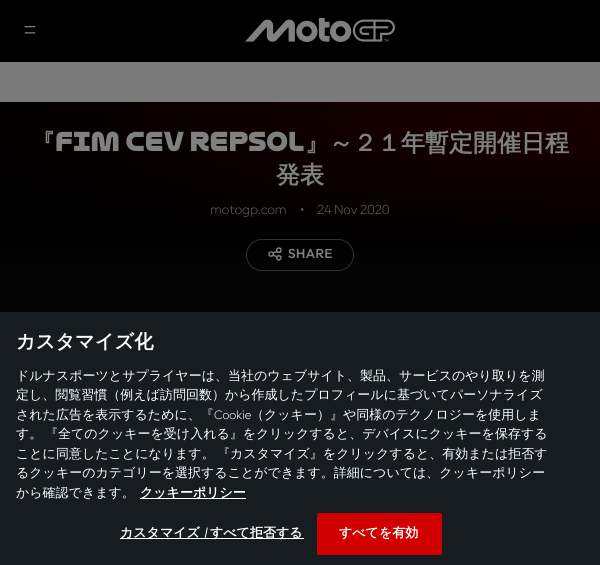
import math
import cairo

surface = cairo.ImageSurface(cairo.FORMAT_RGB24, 600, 565)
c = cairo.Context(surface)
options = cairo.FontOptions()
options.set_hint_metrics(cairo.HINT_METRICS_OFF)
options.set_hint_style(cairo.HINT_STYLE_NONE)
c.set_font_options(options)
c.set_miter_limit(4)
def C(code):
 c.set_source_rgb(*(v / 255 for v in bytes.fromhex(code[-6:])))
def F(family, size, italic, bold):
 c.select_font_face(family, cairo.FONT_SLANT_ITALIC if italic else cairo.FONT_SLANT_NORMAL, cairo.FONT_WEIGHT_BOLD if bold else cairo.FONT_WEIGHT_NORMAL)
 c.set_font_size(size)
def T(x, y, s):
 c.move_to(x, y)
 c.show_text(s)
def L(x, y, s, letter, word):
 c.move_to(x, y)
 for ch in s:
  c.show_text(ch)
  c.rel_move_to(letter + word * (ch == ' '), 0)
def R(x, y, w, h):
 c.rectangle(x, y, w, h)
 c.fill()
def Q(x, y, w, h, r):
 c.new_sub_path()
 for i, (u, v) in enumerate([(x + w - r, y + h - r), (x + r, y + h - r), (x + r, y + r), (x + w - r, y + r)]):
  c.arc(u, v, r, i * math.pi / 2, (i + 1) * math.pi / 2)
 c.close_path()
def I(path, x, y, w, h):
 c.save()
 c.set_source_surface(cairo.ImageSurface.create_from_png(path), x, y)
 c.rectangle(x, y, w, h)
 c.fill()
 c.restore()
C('7a7a7a')
c.paint()
C('000000')
R(0,0,600,62)
I('1.png',24,26,12,8)
I('2.png',245,18,150,24)
gradient = cairo.RadialGradient(0,0,0,0,0,1)
gradient.set_matrix(cairo.Matrix(1 / 605, 0, 0, 1 / 141, -1 * 458 / 605, -1 * 117 / 141))
gradient.add_color_stop_rgba(0,0.043,0.004,0,1)
gradient.add_color_stop_rgba(1,0,0,0,1)
c.set_source(gradient)
R(0,102,600,145)
gradient = cairo.RadialGradient(0,0,0,0,0,1)
gradient.set_matrix(cairo.Matrix(1 / 581, 0, 0, 1 / 135, -1 * 600 / 581, -1 * 107 / 135))
gradient.add_color_stop_rgba(0,0.29,0.008,0.004,.23)
gradient.add_color_stop_rgba(1,0.29,0.008,0.004,0)
c.set_source(gradient)
R(105,102,495,120)
F('WenQuanYi Zen Hei',24,0,1)
C('808080')
T(31,151,'『')
F('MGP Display',24,0,1)
T(55,151,'FIM CEV REPSOL')
F('WenQuanYi Zen Hei',24,0,1)
T(305,151,'』～２１年暫定開催日程')
T(276,183,'発表')
F('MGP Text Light',14,0,0)
C('636363')
T(210,214,'motogp.com')
T(300,214,'•')
T(317,214,'24 Nov 2020')
gradient = cairo.LinearGradient(300,207,300,407)
gradient.add_color_stop_rgba(.16,0,0,0,1)
gradient.add_color_stop_rgba(.28,0.016,0.012,0.012,1)
gradient.add_color_stop_rgba(1,0.043,0.043,0.043,1)
c.set_source(gradient)
R(0,247,600,65)
Q(246.5,239.5,107,31,15.5)
C('303030')
c.set_line_width(1)
c.stroke()
I('3.png',268,247,14,14)
F('MGP Text',14,0,1)
C('808080')
L(288,258,'SHARE',.5,0)
C('171c21')
R(0,312,600,253)
F('WenQuanYi Zen Hei',19.25,0,1)
C('ffffff')
T(16,348,'カスタマイズ化')
F('WenQuanYi Zen Hei Medium',13,0,0)
T(16,380,'ドルナスポーツとサプライヤーは、当社のウェブサイト、製品、サービスのやり取りを測')
T(16,399,'定し、閲覧習慣（例えば訪問回数）から作成したプロフィールに基づいてパーソナライズ')
T(16,419,'された広告を表示するために、『')
F('MGP Text Light',13,0,0)
T(214,419,'Cookie')
F('WenQuanYi Zen Hei Medium',13,0,0)
T(251,419,'（クッキー）』や同様のテクノロジーを使用しま')
T(16,438,'す。')
T(45,438,'『全てのクッキーを受け入れる』をクリックすると、デバイスにクッキーを保存する')
T(16,458,'ことに同意したことになります。')
T(217,458,'『カスタマイズ』をクリックすると、有効または拒否す')
T(16,477,'るクッキーのカテゴリーを選択することができます。詳細については、クッキーポリシー')
T(16,497,'から確認できます。')
R(140,498,106,1)
F('WenQuanYi Zen Hei',13,0,1)
T(140,497,'クッキーポリシー')
R(120,538,184,1)
T(120,537,'カスタマイズ')
F('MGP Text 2',13,0,1)
T(204,537,'/')
F('WenQuanYi Zen Hei',13,0,1)
T(210,537,'すべて拒否する')
C('d00000')
Q(317.5,513.5,124,41,1.5)
c.fill_preserve()
c.stroke()
C('ffffff')
T(339,537,'すべてを有効')
surface.write_to_png('o.png')
